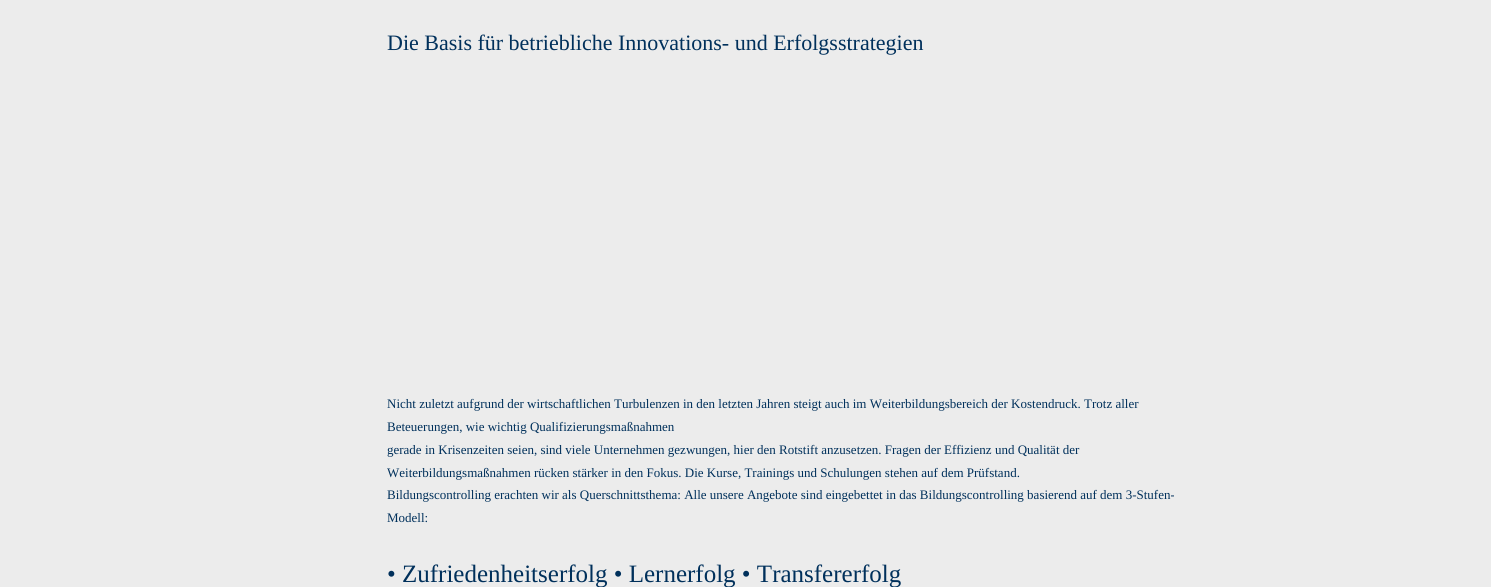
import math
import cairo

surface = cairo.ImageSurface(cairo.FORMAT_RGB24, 1491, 587)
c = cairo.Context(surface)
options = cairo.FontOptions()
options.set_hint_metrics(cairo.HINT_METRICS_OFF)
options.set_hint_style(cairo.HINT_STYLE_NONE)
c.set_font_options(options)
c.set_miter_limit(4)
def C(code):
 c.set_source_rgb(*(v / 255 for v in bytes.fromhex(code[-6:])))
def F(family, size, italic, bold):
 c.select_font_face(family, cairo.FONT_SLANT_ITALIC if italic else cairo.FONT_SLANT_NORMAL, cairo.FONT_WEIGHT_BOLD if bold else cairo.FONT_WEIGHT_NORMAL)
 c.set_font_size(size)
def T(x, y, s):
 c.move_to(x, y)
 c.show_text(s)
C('ececec')
c.paint()
F('Liberation Serif',22,0,0)
C('00305b')
T(387,50,'Die Basis für betriebliche Innovations- und Erfolgsstrategien')
F('Liberation Serif',13,0,0)
T(387,408,'Nicht zuletzt aufgrund der wirtschaftlichen Turbulenzen in den letzten Jahren steigt auch im Weiterbildungsbereich der Kostendruck. Trotz aller')
T(387,431,'Beteuerungen, wie wichtig Qualifizierungsmaßnahmen')
T(387,454,'gerade in Krisenzeiten seien, sind viele Unternehmen gezwungen, hier den Rotstift anzusetzen. Fragen der Effizienz und Qualität der')
T(387,477,'Weiterbildungsmaßnahmen rücken stärker in den Fokus. Die Kurse, Trainings und Schulungen stehen auf dem Prüfstand.')
T(387,499,'Bildungscontrolling erachten wir als Querschnittsthema: Alle unsere Angebote sind eingebettet in das Bildungscontrolling basierend auf dem 3-Stufen-')
T(387,522,'Modell:')
F('Liberation Serif',25,0,0)
T(387,582,'• Zufriedenheitserfolg • Lernerfolg • Transfererfolg')
surface.write_to_png('o.png')
